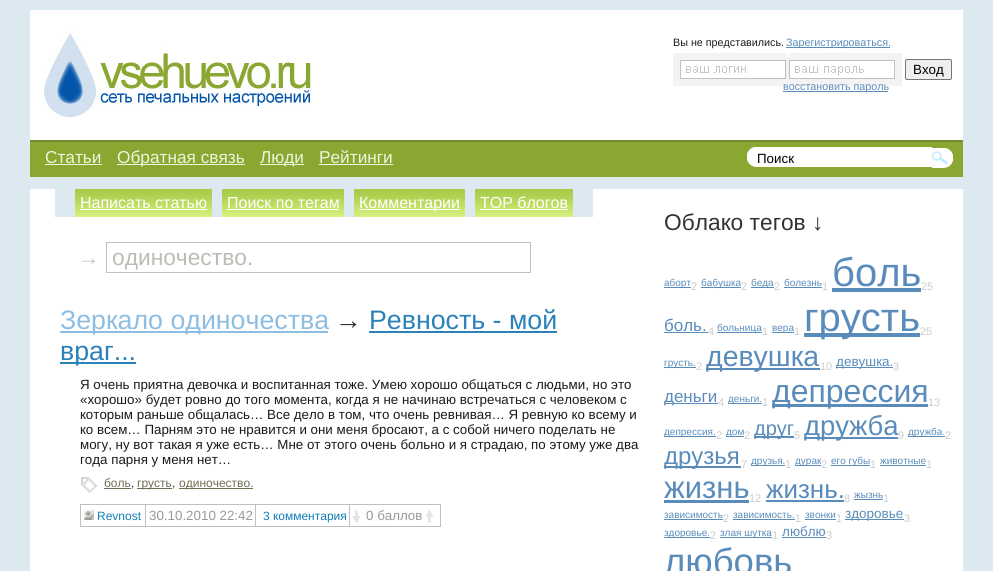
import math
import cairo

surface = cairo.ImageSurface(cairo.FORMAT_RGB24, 993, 571)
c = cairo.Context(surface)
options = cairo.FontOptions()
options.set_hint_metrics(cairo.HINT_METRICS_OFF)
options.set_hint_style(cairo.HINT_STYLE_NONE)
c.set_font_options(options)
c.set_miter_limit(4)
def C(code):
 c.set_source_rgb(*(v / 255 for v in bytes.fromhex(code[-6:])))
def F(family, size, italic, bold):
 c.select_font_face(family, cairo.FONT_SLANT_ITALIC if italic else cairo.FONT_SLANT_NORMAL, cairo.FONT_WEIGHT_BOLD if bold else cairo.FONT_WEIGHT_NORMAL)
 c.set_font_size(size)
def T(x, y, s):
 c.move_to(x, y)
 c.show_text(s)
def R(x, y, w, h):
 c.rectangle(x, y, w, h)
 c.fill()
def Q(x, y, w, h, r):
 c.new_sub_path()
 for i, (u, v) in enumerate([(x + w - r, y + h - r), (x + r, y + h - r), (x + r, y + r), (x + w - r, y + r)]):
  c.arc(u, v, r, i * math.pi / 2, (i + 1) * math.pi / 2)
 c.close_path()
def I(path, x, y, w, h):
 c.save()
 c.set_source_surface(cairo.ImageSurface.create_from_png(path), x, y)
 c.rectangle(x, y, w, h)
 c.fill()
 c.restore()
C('dce9f0')
c.paint()
C('ffffff')
R(30,10,933,130)
C('7b8833')
R(30,140,933,2)
I('1.png',42,30,270,88)
F('Liberation Sans',10.75,0,0)
C('1a1a1a')
T(673,46,'Вы не представились.')
C('598cbb')
R(786,47,104,1)
T(786,46,'Зарегистрироваться.')
C('f3f3f3')
R(673,53,113,33)
R(786,57,3,26)
R(789,53,113,33)
C('ffffff')
R(681,61,104,17)
I('2.png',686,66,60,7)
c.rectangle(680.5,60.5,105,18)
C('c0c0c0')
c.set_line_width(1)
c.stroke()
C('ffffff')
R(790,61,104,17)
I('3.png',795,66,69,10)
c.rectangle(789.5,60.5,105,18)
C('c0c0c0')
c.stroke()
C('efefef')
Q(905.5,59.5,46,20,1.5)
c.fill_preserve()
C('767676')
c.stroke()
F('Liberation Sans',13.35,0,0)
C('000000')
T(913,74,'Вход')
C('598cbb')
R(783,91,105,1)
F('Liberation Sans',10.75,0,0)
T(783,90,'восстановить пароль')
C('8aa732')
R(30,142,933,35)
F('Liberation Sans',17.25,0,0)
C('eff5dc')
T(45,163,'Статьи')
R(45,164,57,1)
R(117,164,128,1)
T(117,163,'Обратная связь')
R(260,164,44,1)
T(260,163,'Люди')
T(319,163,'Рейтинги')
R(319,164,74,1)
I('4.png',747,147,185,20)
F('Liberation Sans',13.35,0,0)
C('000000')
T(757,163,'Поиск')
I('5.png',932,148,21,20)
C('ffffff')
R(30,189,933,382)
C('dce9f0')
R(55,189,538,28)
I('6.png',75,189,137,28)
F('Liberation Sans',16,0,0)
C('ffffff')
T(80,208,'Написать статью')
R(80,209,127,1)
I('7.png',222,189,122,28)
T(227,208,'Поиск по тегам')
R(227,209,112,1)
I('8.png',354,189,111,28)
R(359,209,101,1)
T(359,208,'Комментарии')
I('9.png',475,189,98,28)
T(480,208,'TOP блогов')
R(480,209,88,1)
F('Liberation Sans',22.75,0,0)
C('cccccc')
T(77,265,'→')
c.rectangle(106.5,242.5,424,30)
C('c0c0c0')
c.stroke()
C('bdbcb3')
T(112,265,'одиночество.')
C('8dbee2')
R(60,331,268,2)
F('Liberation Sans',26.75,0,0)
T(60,329,'Зеркало одиночества')
C('333333')
T(335,329,'→')
C('2b82bb')
T(369,329,'Ревность - мой')
R(369,331,188,2)
R(60,362,76,2)
T(60,360,'враг...')
F('Liberation Sans',13.35,0,0)
C('1a1a1a')
T(80,389,'Я очень приятна девочка и воспитанная тоже. Умею хорошо общаться с людьми, но это')
T(80,404,'«хорошо» будет ровно до того момента, когда я не начинаю встречаться с человеком с')
T(80,419,'которым раньше общалась… Все дело в том, что очень ревнивая… Я ревную ко всему и')
T(80,434,'ко всем… Парням это не нравится и они меня бросают, а с собой ничего поделать не')
T(80,449,'могу, ну вот такая я уже есть… Мне от этого очень больно и я страдаю, по этому уже два')
T(80,464,'года парня у меня нет…')
I('10.png',81,477,16,16)
F('Liberation Sans',12,0,0)
C('716c55')
T(104,487,'боль')
R(104,488,27,1)
C('333333')
T(131,487,',')
C('716c55')
R(137,488,35,1)
T(137,487,'грусть')
C('333333')
T(172,487,',')
C('716c55')
R(179,488,74,1)
T(179,487,'одиночество.')
C('c0c0c0')
R(80,504,361,1)
R(80,526,361,1)
R(80,504,1,23)
R(145,505,1,21)
I('11.png',84,510,10,10)
C('107eb7')
T(97,520,'Revnost')
C('c0c0c0')
R(255,505,1,21)
F('Liberation Sans',13.35,0,0)
C('999999')
T(149,520,'30.10.2010 22:42')
C('c0c0c0')
R(349,505,1,21)
F('Liberation Sans',12,0,0)
C('107eb7')
T(263,520,'3 комментария')
C('c0c0c0')
R(440,505,1,21)
I('12.png',353,510,7,13)
F('Liberation Sans',13.35,0,0)
C('999999')
T(366,520,'0 баллов')
I('13.png',426,510,7,13)
F('Liberation Sans',22.75,0,0)
C('333333')
T(664,230,'Облако тегов ↓')
C('598cbb')
R(664,287,27,1)
F('Liberation Sans',10,0,0)
T(664,286,'аборт')
F('Liberation Sans',11,0,0)
C('cccccc')
T(691,290,'2')
C('598cbb')
R(701,287,40,1)
F('Liberation Sans',10,0,0)
T(701,286,'бабушка')
F('Liberation Sans',11,0,0)
C('cccccc')
T(741,290,'2')
C('598cbb')
R(751,287,23,1)
F('Liberation Sans',10,0,0)
T(751,286,'беда')
F('Liberation Sans',11,0,0)
C('cccccc')
T(774,290,'2')
F('Liberation Sans',10,0,0)
C('598cbb')
T(784,286,'болезнь')
R(784,287,38,1)
F('Liberation Sans',11,0,0)
C('cccccc')
T(822,290,'1')
F('Liberation Sans',40,0,0)
C('598cbb')
T(832,286,'боль')
R(832,288,89,4)
F('Liberation Sans',11,0,0)
C('cccccc')
T(921,290,'25')
F('Liberation Sans',17,0,0)
C('598cbb')
T(664,331,'боль.')
R(664,332,44,1)
F('Liberation Sans',11,0,0)
C('cccccc')
T(708,335,'4')
C('598cbb')
R(717,332,45,1)
F('Liberation Sans',10,0,0)
T(717,331,'больница')
F('Liberation Sans',11,0,0)
C('cccccc')
T(762,335,'1')
C('598cbb')
R(772,332,22,1)
F('Liberation Sans',10,0,0)
T(772,331,'вера')
F('Liberation Sans',11,0,0)
C('cccccc')
T(794,335,'1')
C('598cbb')
R(804,333,116,4)
F('Liberation Sans',40,0,0)
T(804,331,'грусть')
F('Liberation Sans',11,0,0)
C('cccccc')
T(920,335,'25')
C('598cbb')
R(664,367,32,1)
F('Liberation Sans',10,0,0)
T(664,366,'грусть.')
F('Liberation Sans',11,0,0)
C('cccccc')
T(696,370,'2')
C('598cbb')
R(706,368,114,2)
F('Liberation Sans',28.5,0,0)
T(706,366,'девушка')
F('Liberation Sans',11,0,0)
C('cccccc')
T(820,370,'10')
C('598cbb')
R(836,367,57,1)
F('Liberation Sans',13.5,0,0)
T(836,366,'девушка.')
F('Liberation Sans',11,0,0)
C('cccccc')
T(893,370,'3')
C('598cbb')
R(664,403,54,1)
F('Liberation Sans',17,0,0)
T(664,402,'деньги')
F('Liberation Sans',11,0,0)
C('cccccc')
T(718,406,'4')
C('598cbb')
R(728,403,34,1)
F('Liberation Sans',10,0,0)
T(728,402,'деньги.')
F('Liberation Sans',11,0,0)
C('cccccc')
T(762,406,'1')
C('598cbb')
R(772,404,156,3)
F('Liberation Sans',32,0,0)
T(772,402,'депрессия')
F('Liberation Sans',11,0,0)
C('cccccc')
T(928,406,'13')
C('598cbb')
R(664,436,52,1)
F('Liberation Sans',10,0,0)
T(664,435,'депрессия.')
F('Liberation Sans',11,0,0)
C('cccccc')
T(716,439,'2')
C('598cbb')
R(726,436,18,1)
F('Liberation Sans',10,0,0)
T(726,435,'дом')
F('Liberation Sans',11,0,0)
C('cccccc')
T(744,439,'2')
C('598cbb')
R(754,436,40,2)
F('Liberation Sans',20,0,0)
T(754,435,'друг')
F('Liberation Sans',11,0,0)
C('cccccc')
T(794,439,'5')
C('598cbb')
R(804,437,94,2)
F('Liberation Sans',27.5,0,0)
T(804,435,'дружба')
F('Liberation Sans',11,0,0)
C('cccccc')
T(898,439,'9')
C('598cbb')
R(908,436,37,1)
F('Liberation Sans',10,0,0)
T(908,435,'дружба.')
F('Liberation Sans',11,0,0)
C('cccccc')
T(945,439,'2')
C('598cbb')
R(664,466,77,2)
F('Liberation Sans',24,0,0)
T(664,464,'друзья')
F('Liberation Sans',11,0,0)
C('cccccc')
T(741,468,'7')
C('598cbb')
R(751,465,34,1)
F('Liberation Sans',10,0,0)
T(751,464,'друзья.')
F('Liberation Sans',11,0,0)
C('cccccc')
T(785,468,'1')
C('598cbb')
R(795,465,26,1)
F('Liberation Sans',10,0,0)
T(795,464,'дурак')
F('Liberation Sans',11,0,0)
C('cccccc')
T(821,468,'2')
C('598cbb')
R(831,465,39,1)
F('Liberation Sans',10,0,0)
T(831,464,'его губы')
F('Liberation Sans',11,0,0)
C('cccccc')
T(870,468,'1')
F('Liberation Sans',10,0,0)
C('598cbb')
T(880,464,'животные')
R(880,465,46,1)
F('Liberation Sans',11,0,0)
C('cccccc')
T(926,468,'1')
F('Liberation Sans',31,0,0)
C('598cbb')
T(664,498,'жизнь')
R(664,500,85,3)
F('Liberation Sans',11,0,0)
C('cccccc')
T(749,502,'12')
F('Liberation Sans',26,0,0)
C('598cbb')
T(766,498,'жизнь.')
R(766,500,78,2)
F('Liberation Sans',11,0,0)
C('cccccc')
T(844,502,'8')
F('Liberation Sans',10,0,0)
C('598cbb')
T(854,498,'жызнь')
R(854,499,29,1)
F('Liberation Sans',11,0,0)
C('cccccc')
T(883,502,'1')
F('Liberation Sans',10,0,0)
C('598cbb')
T(664,518,'зависимость')
R(664,519,59,1)
F('Liberation Sans',11,0,0)
C('cccccc')
T(723,522,'2')
F('Liberation Sans',10,0,0)
C('598cbb')
T(733,518,'зависимость.')
R(733,519,62,1)
F('Liberation Sans',11,0,0)
C('cccccc')
T(795,522,'1')
F('Liberation Sans',10,0,0)
C('598cbb')
T(805,518,'звонки')
R(805,519,31,1)
F('Liberation Sans',11,0,0)
C('cccccc')
T(836,522,'1')
C('598cbb')
R(845,519,59,1)
F('Liberation Sans',13.5,0,0)
T(845,518,'здоровье')
F('Liberation Sans',11,0,0)
C('cccccc')
T(904,522,'3')
C('598cbb')
R(664,537,46,1)
F('Liberation Sans',10,0,0)
T(664,536,'здоровье.')
F('Liberation Sans',11,0,0)
C('cccccc')
T(710,539,'2')
C('598cbb')
R(720,537,52,1)
F('Liberation Sans',10,0,0)
T(720,536,'злая шутка')
F('Liberation Sans',11,0,0)
C('cccccc')
T(772,539,'1')
F('Liberation Sans',13.5,0,0)
C('598cbb')
T(782,536,'люблю')
R(782,537,44,1)
F('Liberation Sans',11,0,0)
C('cccccc')
T(826,539,'3')
F('Liberation Sans',36.5,0,0)
C('598cbb')
T(664,574,'любовь')
surface.write_to_png('o.png')
